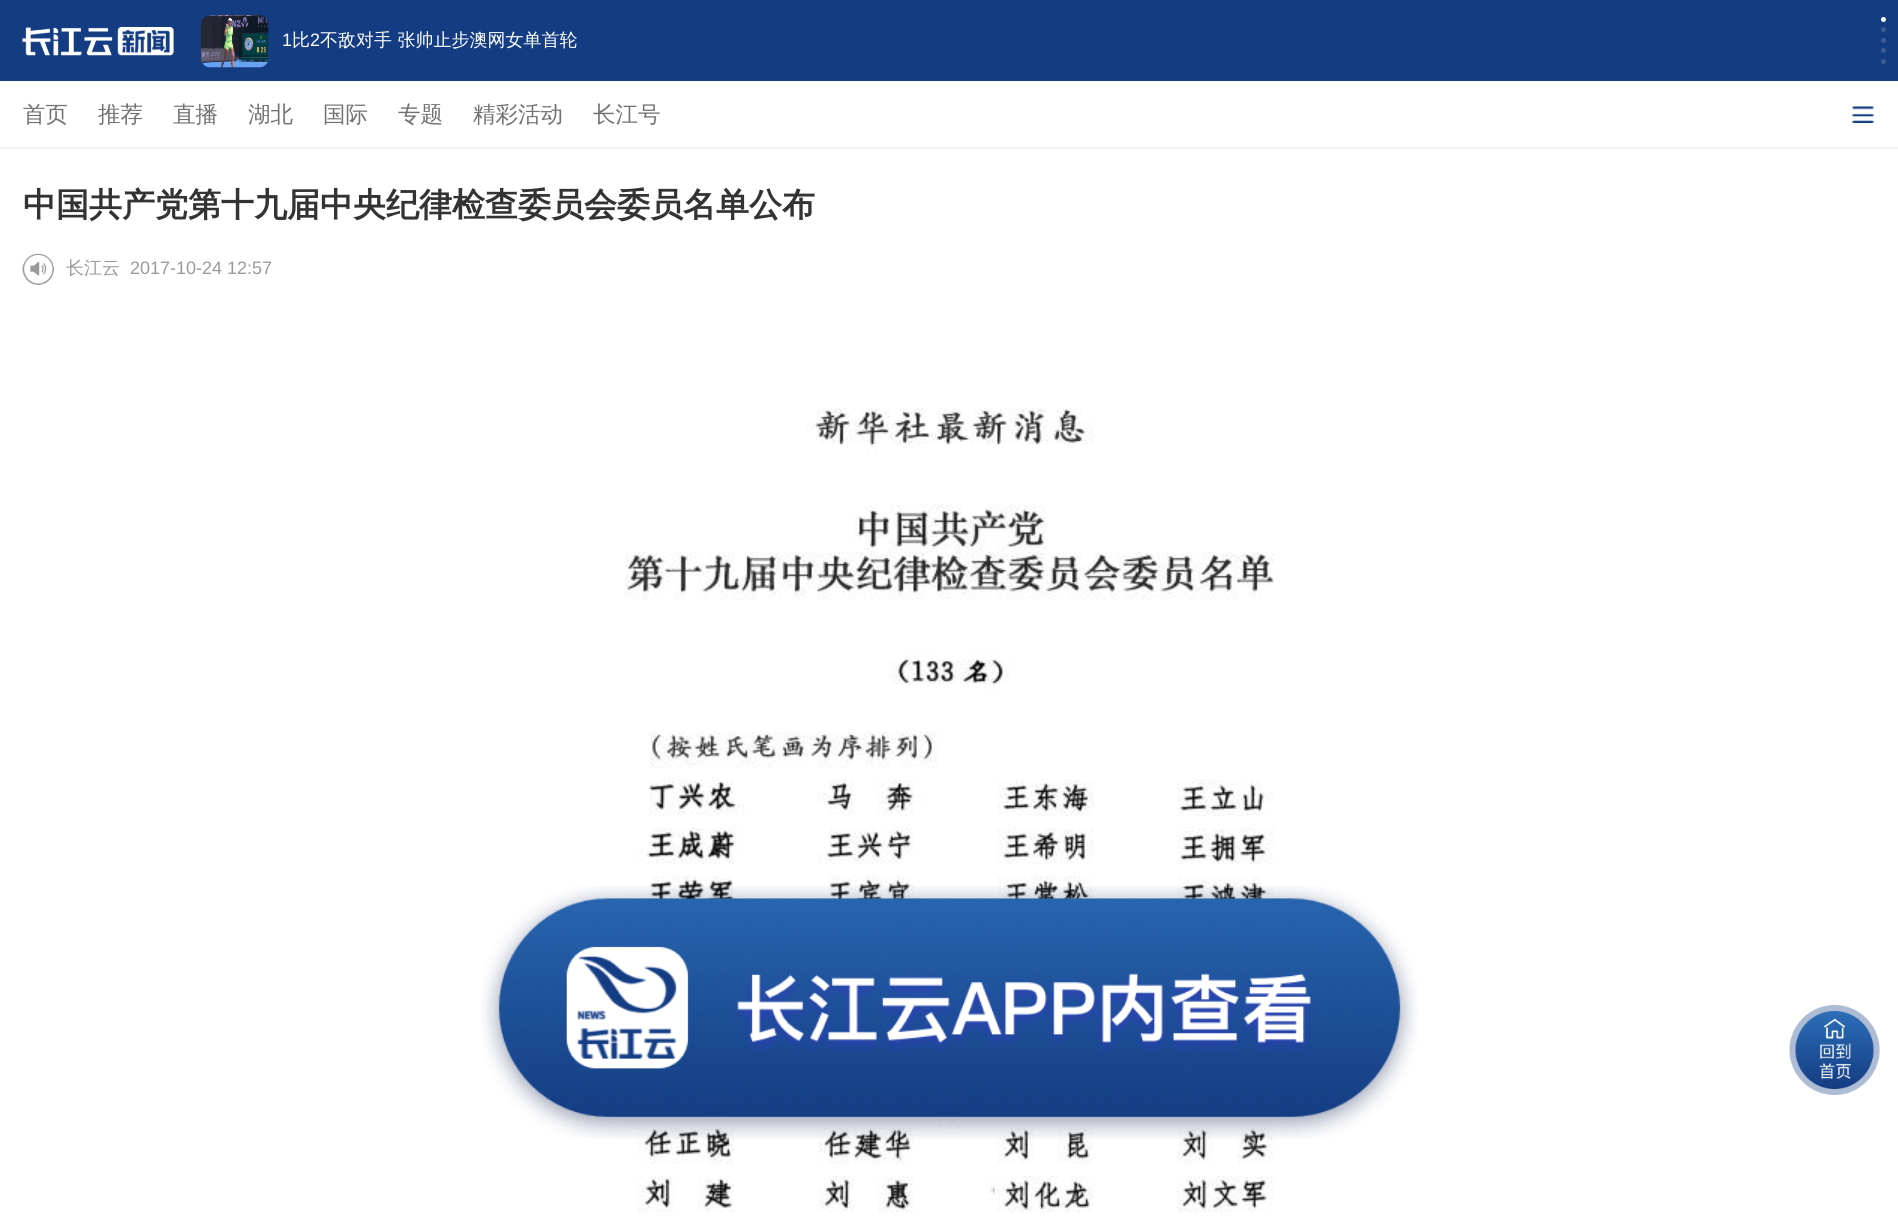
import math
import cairo

surface = cairo.ImageSurface(cairo.FORMAT_RGB24, 1898, 1220)
c = cairo.Context(surface)
options = cairo.FontOptions()
options.set_hint_metrics(cairo.HINT_METRICS_OFF)
options.set_hint_style(cairo.HINT_STYLE_NONE)
c.set_font_options(options)
c.set_miter_limit(4)
def C(code):
 c.set_source_rgb(*(v / 255 for v in bytes.fromhex(code[-6:])))
def F(family, size, italic, bold):
 c.select_font_face(family, cairo.FONT_SLANT_ITALIC if italic else cairo.FONT_SLANT_NORMAL, cairo.FONT_WEIGHT_BOLD if bold else cairo.FONT_WEIGHT_NORMAL)
 c.set_font_size(size)
def T(x, y, s):
 c.move_to(x, y)
 c.show_text(s)
def R(x, y, w, h):
 c.rectangle(x, y, w, h)
 c.fill()
def I(path, x, y, w, h):
 c.save()
 c.set_source_surface(cairo.ImageSurface.create_from_png(path), x, y)
 c.rectangle(x, y, w, h)
 c.fill()
 c.restore()
C('ffffff')
c.paint()
C('143c82')
R(0,0,1898,81)
I('1.png',22,27,152,29)
I('2.png',201,15,68,53)
F('Liberation Sans',18,0,0)
C('ffffff')
T(282,46,'1')
F('WenQuanYi Zen Hei Medium',18,0,0)
T(292,46,'比')
F('Liberation Sans',18,0,0)
T(310,46,'2')
F('WenQuanYi Zen Hei Medium',18,0,0)
T(320,46,'不敌对手 张帅止步澳网女单首轮')
c.new_path()
c.arc(1883.5,19.5,2.5,0,2 * math.pi)
c.fill()
C('3a5b96')
c.arc(1883.5,29.5,2.5,0,2 * math.pi)
c.fill()
c.arc(1883.5,40.5,2.5,0,2 * math.pi)
c.fill()
c.arc(1883.5,50.5,2.5,0,2 * math.pi)
c.fill()
c.arc(1883.5,61.5,2.5,0,2 * math.pi)
c.fill()
C('f3f3f3')
R(0,147,1898,2)
F('WenQuanYi Zen Hei Medium',22.5,0,0)
C('717171')
T(23,122,'首页')
T(98,122,'推荐')
T(173,122,'直播')
T(248,122,'湖北')
T(323,122,'国际')
T(398,122,'专题')
T(473,122,'精彩活动')
T(593,122,'长江号')
I('3.png',1852,106,22,17)
F('WenQuanYi Zen Hei',33,0,1)
C('333333')
T(23,216,'中国共产党第十九届中央纪律检查委员会委员名单公布')
I('4.png',22,253,32,32)
F('WenQuanYi Zen Hei Medium',18,0,0)
C('999999')
T(66,274,'长江云')
F('Liberation Sans',18,0,0)
T(130,274,'2017-10-24 12:57')
I('5.png',625,408,649,805)
I('6.png',481,886,937,253)
I('7.png',1789,1005,91,90)
surface.write_to_png('o.png')
